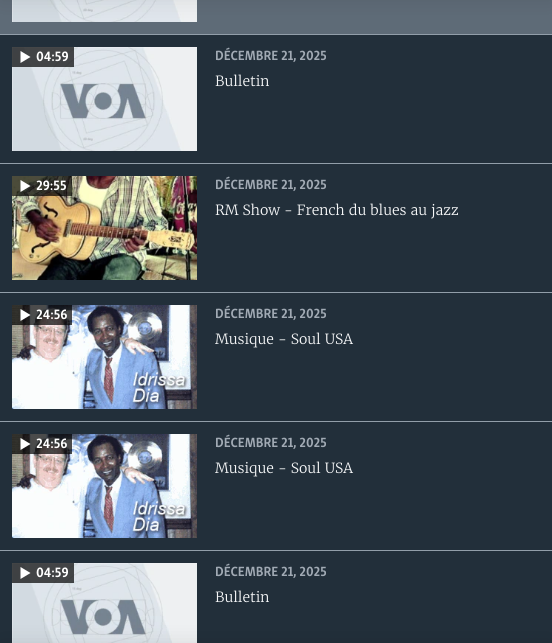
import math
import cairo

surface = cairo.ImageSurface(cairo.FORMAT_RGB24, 552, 643)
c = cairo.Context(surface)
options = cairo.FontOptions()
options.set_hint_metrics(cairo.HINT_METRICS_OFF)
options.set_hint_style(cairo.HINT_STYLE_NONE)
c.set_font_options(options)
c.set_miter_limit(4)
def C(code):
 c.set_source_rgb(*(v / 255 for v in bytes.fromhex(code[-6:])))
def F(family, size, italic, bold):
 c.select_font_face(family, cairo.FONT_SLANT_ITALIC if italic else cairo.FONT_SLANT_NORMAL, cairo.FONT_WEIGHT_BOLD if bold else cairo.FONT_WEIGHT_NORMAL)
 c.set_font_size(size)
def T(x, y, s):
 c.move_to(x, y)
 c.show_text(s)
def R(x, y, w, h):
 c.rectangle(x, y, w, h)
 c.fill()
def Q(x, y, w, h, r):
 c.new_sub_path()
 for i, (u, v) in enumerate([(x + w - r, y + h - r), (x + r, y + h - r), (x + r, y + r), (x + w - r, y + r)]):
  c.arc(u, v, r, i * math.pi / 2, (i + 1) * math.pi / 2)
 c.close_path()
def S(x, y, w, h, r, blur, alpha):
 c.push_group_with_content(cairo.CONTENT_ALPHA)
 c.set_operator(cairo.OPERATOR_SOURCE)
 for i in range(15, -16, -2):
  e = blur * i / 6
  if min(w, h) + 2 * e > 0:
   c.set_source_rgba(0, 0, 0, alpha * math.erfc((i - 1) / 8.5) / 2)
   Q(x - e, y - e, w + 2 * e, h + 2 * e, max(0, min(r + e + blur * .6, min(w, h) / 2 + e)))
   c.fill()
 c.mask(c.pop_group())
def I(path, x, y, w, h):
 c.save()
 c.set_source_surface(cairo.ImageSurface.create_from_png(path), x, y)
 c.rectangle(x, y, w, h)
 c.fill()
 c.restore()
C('222f3a')
c.paint()
C('5e6b77')
R(0,0,552,34)
C('f6f7f8')
R(12,0,185,22)
I('1.png',12,0,185,22)
C('000000')
S(0,-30,552,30,0,10,.1)
C('f6f7f8')
R(12,563,185,80)
I('5.png',12,563,185,80)
C('000000')
S(0,643,552,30,0,10,.1)
C('929ea9')
R(0,34,552,1)
C('f6f7f8')
R(12,47,185,104)
I('2.png',12,47,185,104)
c.set_source_rgba(0,0,0,0.7)
R(12,47,62,20)
C('ffffff')
c.new_path()
c.move_to(20.5,63)
c.line_to(30.5,57)
c.line_to(20.5,51)
c.close_path()
c.fill()
F('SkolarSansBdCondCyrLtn',14,0,1)
T(36,61,'04:59')
F('SkolarSansBdCondCyrLtn',13.75,0,1)
C('a1aab4')
T(215,60,'DÉCEMBRE 21, 2025')
F('Merriweather Light',14,0,0)
C('f6f7f8')
T(215,86,'Bulletin')
C('929ea9')
R(0,163,552,1)
I('3.png',12,176,185,104)
c.set_source_rgba(0,0,0,0.7)
R(12,176,60,20)
C('ffffff')
c.new_path()
c.move_to(20.5,192)
c.line_to(30.5,186)
c.line_to(20.5,180)
c.close_path()
c.fill()
F('SkolarSansBdCondCyrLtn',14,0,1)
T(36,190,'29:55')
F('SkolarSansBdCondCyrLtn',13.75,0,1)
C('a1aab4')
T(215,189,'DÉCEMBRE 21, 2025')
F('Merriweather Light',14,0,0)
C('f6f7f8')
T(215,215,'RM Show - French du blues au jazz')
C('929ea9')
R(0,292,552,1)
I('4.png',12,305,185,104)
c.set_source_rgba(0,0,0,0.7)
R(12,305,60,20)
C('ffffff')
c.new_path()
c.move_to(20.5,321)
c.line_to(30.5,315)
c.line_to(20.5,309)
c.close_path()
c.fill()
F('SkolarSansBdCondCyrLtn',14,0,1)
T(36,319,'24:56')
F('SkolarSansBdCondCyrLtn',13.75,0,1)
C('a1aab4')
T(215,318,'DÉCEMBRE 21, 2025')
F('Merriweather Light',14,0,0)
C('f6f7f8')
T(215,344,'Musique - Soul USA')
C('929ea9')
R(0,421,552,1)
I('4.png',12,434,185,104)
c.set_source_rgba(0,0,0,0.7)
R(12,434,60,20)
C('ffffff')
c.new_path()
c.move_to(20.5,450)
c.line_to(30.5,444)
c.line_to(20.5,438)
c.close_path()
c.fill()
F('SkolarSansBdCondCyrLtn',14,0,1)
T(36,448,'24:56')
F('SkolarSansBdCondCyrLtn',13.75,0,1)
C('a1aab4')
T(215,447,'DÉCEMBRE 21, 2025')
F('Merriweather Light',14,0,0)
C('f6f7f8')
T(215,473,'Musique - Soul USA')
C('929ea9')
R(0,550,552,1)
c.set_source_rgba(0,0,0,0.7)
R(12,563,62,20)
C('ffffff')
c.new_path()
c.move_to(20.5,579)
c.line_to(30.5,573)
c.line_to(20.5,567)
c.close_path()
c.fill()
F('SkolarSansBdCondCyrLtn',14,0,1)
T(36,577,'04:59')
F('SkolarSansBdCondCyrLtn',13.75,0,1)
C('a1aab4')
T(215,576,'DÉCEMBRE 21, 2025')
F('Merriweather Light',14,0,0)
C('f6f7f8')
T(215,602,'Bulletin')
surface.write_to_png('o.png')
